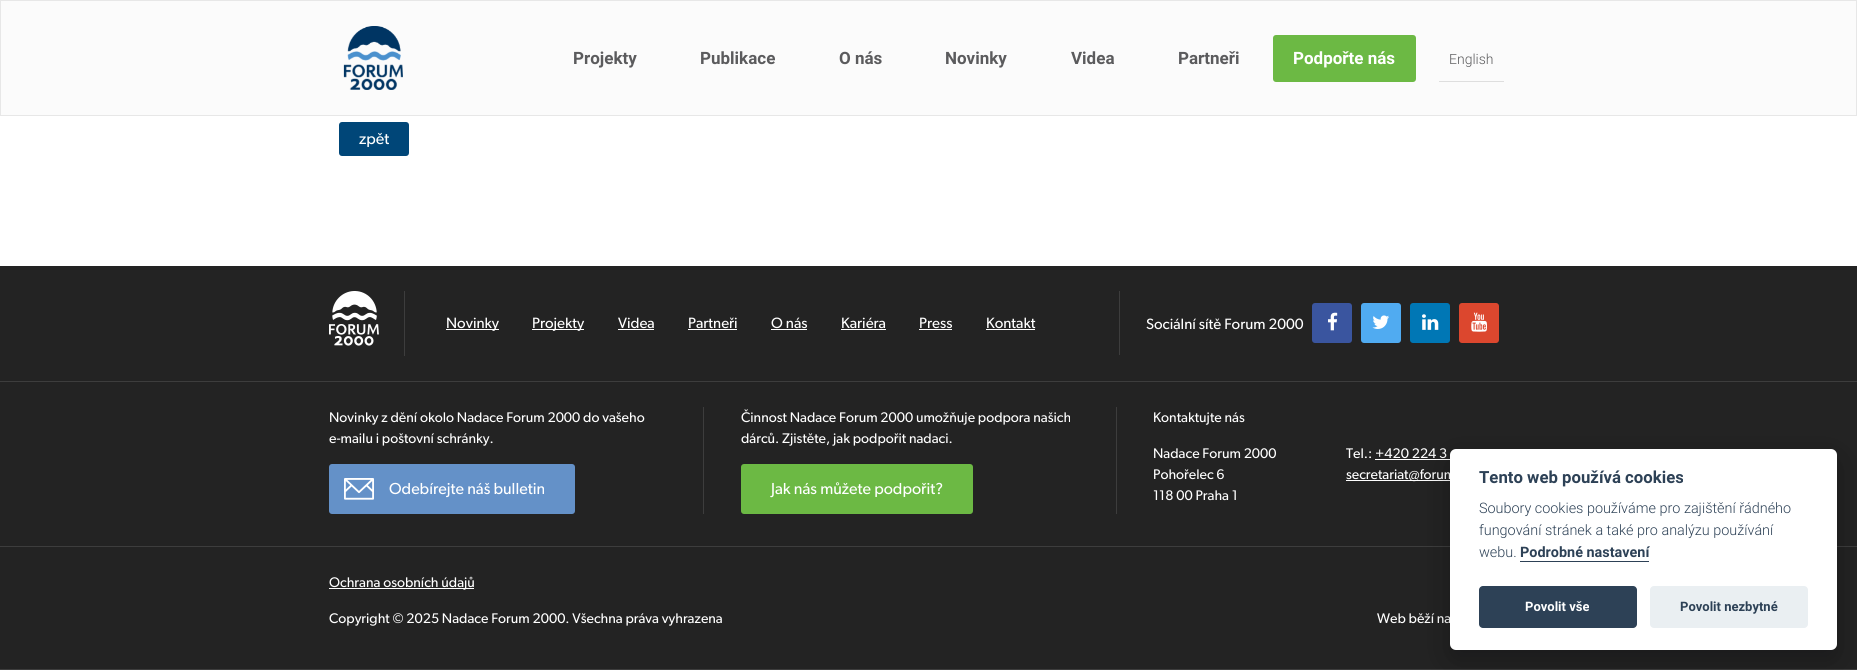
import math
import cairo

surface = cairo.ImageSurface(cairo.FORMAT_RGB24, 1857, 670)
c = cairo.Context(surface)
options = cairo.FontOptions()
options.set_hint_metrics(cairo.HINT_METRICS_OFF)
options.set_hint_style(cairo.HINT_STYLE_NONE)
c.set_font_options(options)
c.set_miter_limit(4)
def C(code):
 c.set_source_rgb(*(v / 255 for v in bytes.fromhex(code[-6:])))
def F(family, size, italic, bold):
 c.select_font_face(family, cairo.FONT_SLANT_ITALIC if italic else cairo.FONT_SLANT_NORMAL, cairo.FONT_WEIGHT_BOLD if bold else cairo.FONT_WEIGHT_NORMAL)
 c.set_font_size(size)
def T(x, y, s):
 c.move_to(x, y)
 c.show_text(s)
def R(x, y, w, h):
 c.rectangle(x, y, w, h)
 c.fill()
def Q(x, y, w, h, r):
 c.new_sub_path()
 for i, (u, v) in enumerate([(x + w - r, y + h - r), (x + r, y + h - r), (x + r, y + r), (x + w - r, y + r)]):
  c.arc(u, v, r, i * math.pi / 2, (i + 1) * math.pi / 2)
 c.close_path()
def S(x, y, w, h, r, blur, alpha):
 c.push_group_with_content(cairo.CONTENT_ALPHA)
 c.set_operator(cairo.OPERATOR_SOURCE)
 for i in range(15, -16, -2):
  e = blur * i / 6
  if min(w, h) + 2 * e > 0:
   c.set_source_rgba(0, 0, 0, alpha * math.erfc((i - 1) / 8.5) / 2)
   Q(x - e, y - e, w + 2 * e, h + 2 * e, max(0, min(r + e + blur * .6, min(w, h) / 2 + e)))
   c.fill()
 c.mask(c.pop_group())
def I(path, x, y, w, h):
 c.save()
 c.set_source_surface(cairo.ImageSurface.create_from_png(path), x, y)
 c.rectangle(x, y, w, h)
 c.fill()
 c.restore()
C('ffffff')
c.paint()
C('fbfbfb')
c.rectangle(.5,.5,1856,115)
c.fill_preserve()
C('e7e7e7')
c.set_line_width(1)
c.stroke()
I('1.png',343,26,60,64)
F('Roboto',17,0,1)
C('5b5b5d')
T(573,64,'Projekty')
T(700,64,'Publikace')
T(839,64,'O nás')
T(945,64,'Novinky')
T(1071,64,'Videa')
T(1178,64,'Partneři')
C('6cb944')
Q(1273,35,143,47,3)
c.fill()
C('ffffff')
T(1293,64,'Podpořte nás')
C('dedede')
R(1439,81,65,1)
F('Roboto Light',14,0,0)
C('5b5b5d')
T(1449,64,'English')
C('004678')
Q(339,122,70,34,3)
c.fill()
F('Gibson',16,0,0)
C('ffffff')
T(359,144,'zpět')
C('232323')
R(0,266,1857,403)
C('3d3d3d')
R(0,381,1857,1)
R(404,291,1,65)
I('2.png',329,291,50,55)
R(1119,291,1,64)
C('ffffff')
R(446,329,53,1)
F('Gibson',15,0,0)
T(446,328,'Novinky')
R(532,329,52,1)
T(532,328,'Projekty')
T(618,328,'Videa')
R(618,329,36,1)
T(688,328,'Partneři')
R(688,329,49,1)
T(771,328,'O nás')
R(771,329,36,1)
T(841,328,'Kariéra')
R(841,329,45,1)
T(919,328,'Press')
R(919,329,33,1)
T(986,328,'Kontakt')
R(986,329,49,1)
T(1146,329,'Sociální sítě Forum 2000')
C('3a559f')
Q(1312,303,40,40,3)
c.fill()
I('3.png',1328,312,10,19)
C('50abf1')
Q(1361,303,40,40,3)
c.fill()
I('4.png',1372,315,17,14)
C('0077b5')
Q(1410,303,40,40,3)
c.fill()
I('5.png',1422,314,17,16)
C('dc472e')
Q(1459,303,40,40,3)
c.fill()
I('6.png',1471,312,16,20)
C('3d3d3d')
R(0,546,1857,1)
R(703,407,1,107)
F('Gibson',14,0,0)
C('ffffff')
T(329,422,'Novinky z dění okolo Nadace Forum 2000 do vašeho')
T(329,443,'e-mailu i poštovní schránky.')
C('6491c8')
Q(329,464,246,50,3)
c.fill()
I('7.png',344,478,30,22)
F('Gibson',16,0,0)
C('ffffff')
T(389,494,'Odebírejte náš bulletin')
C('3d3d3d')
R(1116,407,1,107)
F('Gibson',14,0,0)
C('ffffff')
T(741,422,'Činnost Nadace Forum 2000 umožňuje podpora našich')
T(741,443,'dárců. Zjistěte, jak podpořit nadaci.')
C('6cb944')
Q(741,464,232,50,3)
c.fill()
F('Gibson',16,0,0)
C('ffffff')
T(771,494,'Jak nás můžete podpořit?')
F('Gibson',14,0,0)
T(1153,422,'Kontaktujte nás')
T(1153,458,'Nadace Forum 2000')
T(1153,479,'Pohořelec 6')
T(1153,500,'118 00 Praha 1')
T(1346,458,'Tel.: +420 224 3')
R(1375,459,75,1)
R(1346,480,104,1)
T(1346,479,'secretariat@forum')
C('3d3d3d')
R(0,669,1857,1)
C('ffffff')
R(329,588,145,1)
T(329,587,'Ochrana osobních údajů')
T(329,623,'Copyright © 2025 Nadace Forum 2000. Všechna práva vyhrazena')
T(1377,623,'Web běží na')
C('020203')
S(1450,459,387,201,6,15,.28)
C('ffffff')
Q(1450,449,387,201,6)
c.fill()
F('Roboto',16.75,0,1)
C('2d4156')
T(1479,483,'Tento web používá cookies')
F('Roboto Light',14.4,0,0)
T(1479,513,'Soubory cookies používáme pro zajištění řádného')
T(1479,535,'fungování stránek a také pro analýzu používání')
T(1479,557,'webu.')
F('Roboto',14.4,0,1)
T(1520,557,'Podrobné nastavení')
R(1520,561,129,1)
Q(1479,586,158,42,4)
c.fill()
F('Roboto',13,0,1)
C('ffffff')
T(1525,611,'Povolit vše')
C('eaeff2')
Q(1650,586,158,42,4)
c.fill()
C('2d4156')
T(1680,611,'Povolit nezbytné')
surface.write_to_png('o.png')
